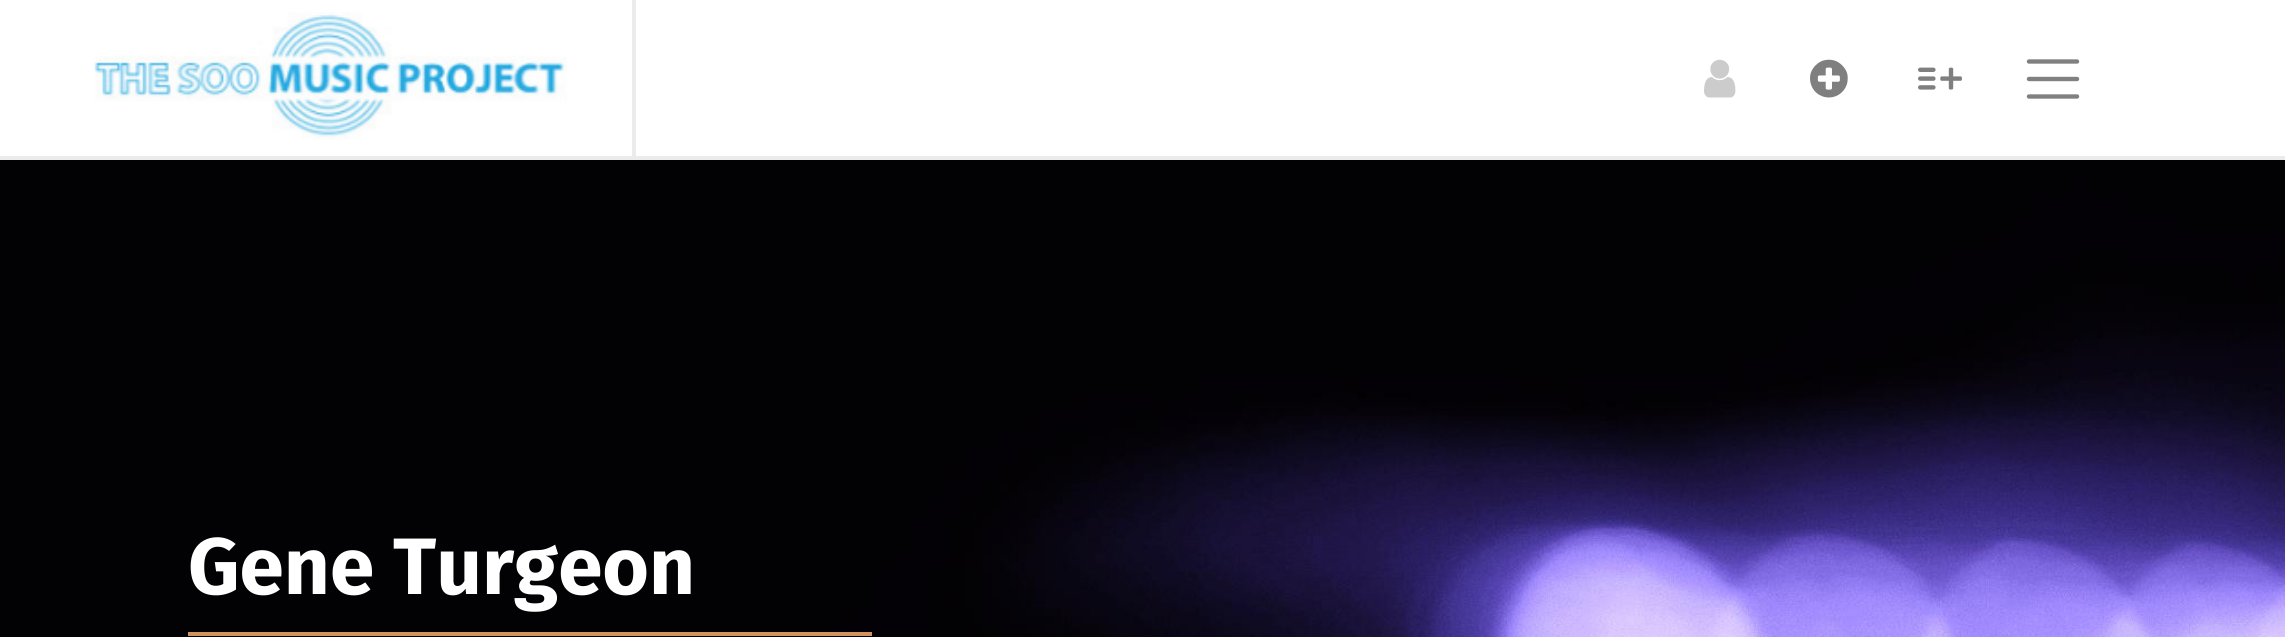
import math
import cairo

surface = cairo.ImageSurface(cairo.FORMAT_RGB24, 2285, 637)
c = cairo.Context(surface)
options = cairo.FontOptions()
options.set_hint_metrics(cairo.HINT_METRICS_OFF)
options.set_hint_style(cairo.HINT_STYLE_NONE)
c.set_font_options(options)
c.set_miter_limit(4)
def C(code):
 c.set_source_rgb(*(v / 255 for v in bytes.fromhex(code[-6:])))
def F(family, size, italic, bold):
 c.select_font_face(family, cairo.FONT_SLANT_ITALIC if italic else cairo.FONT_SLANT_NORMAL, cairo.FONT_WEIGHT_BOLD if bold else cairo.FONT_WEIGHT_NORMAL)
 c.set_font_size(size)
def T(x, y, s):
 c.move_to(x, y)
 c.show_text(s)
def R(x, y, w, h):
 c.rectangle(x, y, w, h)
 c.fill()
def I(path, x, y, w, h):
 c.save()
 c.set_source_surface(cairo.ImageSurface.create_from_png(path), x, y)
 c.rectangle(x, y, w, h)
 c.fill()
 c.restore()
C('ffffff')
c.paint()
C('ebebeb')
R(0,156,2285,4)
I('1.png',94,12,473,128)
R(632,0,4,156)
I('2.png',1704,59,32,39)
I('3.png',1810,59,38,39)
I('4.png',1918,67,44,23)
c.new_path()
c.move_to(2029,61.5)
c.line_to(2077,61.5)
c.move_to(2029,79)
c.line_to(2077,79)
c.move_to(2029,96.5)
c.line_to(2077,96.5)
C('808080')
c.set_line_width(4.4)
c.set_line_cap(cairo.LINE_CAP_ROUND)
c.stroke()
I('5.png',0,160,2285,477)
C('d19460')
R(188,632,684,4)
F('Fira Sans',80,0,1)
C('ffffff')
T(188,594,'Gene Turgeon')
surface.write_to_png('o.png')
